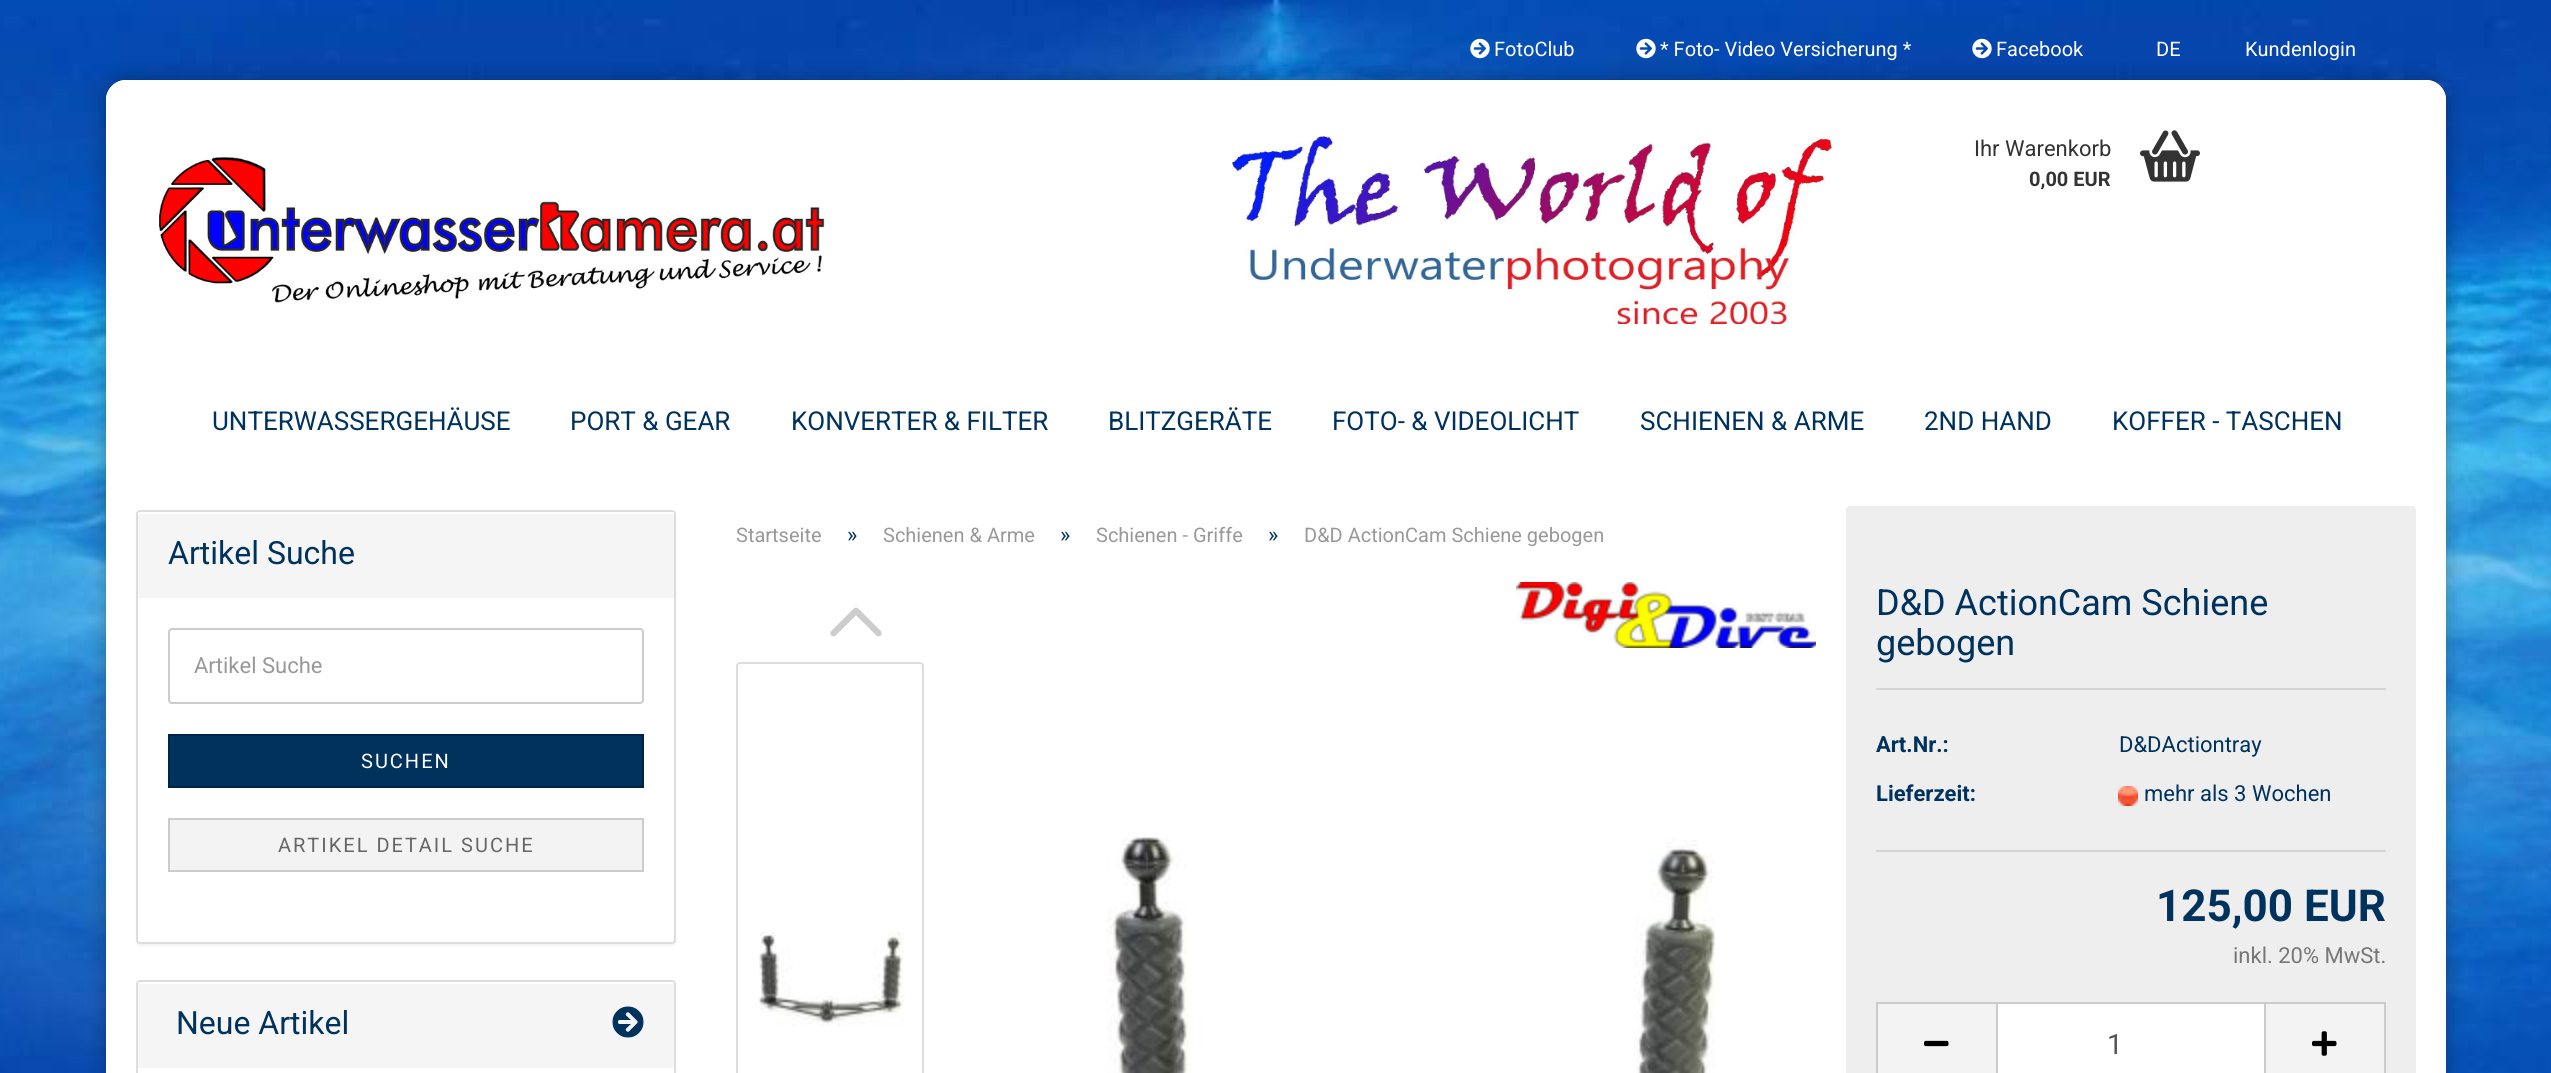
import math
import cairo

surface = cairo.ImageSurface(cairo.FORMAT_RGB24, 2551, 1073)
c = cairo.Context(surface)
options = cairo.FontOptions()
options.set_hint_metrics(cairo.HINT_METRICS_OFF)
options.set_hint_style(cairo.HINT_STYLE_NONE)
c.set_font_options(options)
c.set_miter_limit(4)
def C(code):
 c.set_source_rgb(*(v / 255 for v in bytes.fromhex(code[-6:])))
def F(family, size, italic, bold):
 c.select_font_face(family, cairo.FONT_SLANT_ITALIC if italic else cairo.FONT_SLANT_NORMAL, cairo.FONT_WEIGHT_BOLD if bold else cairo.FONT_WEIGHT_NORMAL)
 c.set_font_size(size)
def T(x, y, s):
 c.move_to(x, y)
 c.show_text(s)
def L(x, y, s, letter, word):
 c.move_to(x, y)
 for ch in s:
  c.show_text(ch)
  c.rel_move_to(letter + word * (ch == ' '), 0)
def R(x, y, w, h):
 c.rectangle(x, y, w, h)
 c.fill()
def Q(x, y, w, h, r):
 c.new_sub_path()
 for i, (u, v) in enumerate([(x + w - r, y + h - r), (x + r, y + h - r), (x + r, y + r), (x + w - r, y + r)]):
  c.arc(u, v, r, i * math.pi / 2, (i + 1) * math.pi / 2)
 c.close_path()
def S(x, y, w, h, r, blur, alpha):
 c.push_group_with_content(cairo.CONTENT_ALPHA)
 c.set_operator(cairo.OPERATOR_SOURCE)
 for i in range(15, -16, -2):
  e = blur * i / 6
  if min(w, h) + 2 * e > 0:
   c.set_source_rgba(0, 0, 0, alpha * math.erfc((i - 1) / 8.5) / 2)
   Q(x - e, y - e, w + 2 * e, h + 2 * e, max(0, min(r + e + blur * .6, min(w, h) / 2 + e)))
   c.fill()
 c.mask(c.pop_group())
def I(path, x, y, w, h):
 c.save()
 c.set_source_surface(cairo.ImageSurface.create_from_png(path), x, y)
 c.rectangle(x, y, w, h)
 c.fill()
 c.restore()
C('ffffff')
c.paint()
I('1.png',0,0,2551,1073)
C('000000')
S(106,80,2340,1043,20,10,.3)
C('ffffff')
Q(106,80,2340,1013,20)
c.fill()
c.new_path()
c.move_to(126,80)
c.line_to(2426,80)
c.curve_to(2437,80,2446,89,2446,100)
c.line_to(2446,476)
c.curve_to(2446,478,2444,480,2442,480)
c.line_to(110,480)
c.curve_to(108,480,106,478,106,476)
c.line_to(106,100)
c.curve_to(106,89,115,80,126,80)
c.close_path()
c.fill()
I('2.png',1470,38,20,21)
F('Roboto',20,0,0)
T(1494,56,'FotoClub')
I('3.png',1636,38,20,21)
T(1660,56,'* Foto- Video Versicherung *')
I('4.png',1972,38,20,21)
T(1996,56,'Facebook')
T(2156,56,'DE')
T(2245,56,'Kundenlogin')
I('5.png',159,157,666,146)
I('6.png',1232,136,600,188)
F('Roboto',22,0,0)
C('333333')
T(1974,156,'Ihr Warenkorb')
F('Roboto',20,0,1)
T(2029,186,'0,00 EUR')
I('7.png',2140,130,60,52)
F('Roboto',26,0,0)
C('00325e')
T(212,430,'UNTERWASSERGEHÄUSE')
T(570,430,'PORT & GEAR')
T(791,430,'KONVERTER & FILTER')
T(1108,430,'BLITZGERÄTE')
T(1332,430,'FOTO- & VIDEOLICHT')
T(1640,430,'SCHIENEN & ARME')
T(1924,430,'2ND HAND')
T(2112,430,'KOFFER - TASCHEN')
C('000000')
S(136,512,540,434,4,1,.05)
C('ffffff')
Q(137,511,538,432,3)
c.fill_preserve()
C('dddddd')
c.stroke()
C('f5f5f5')
c.new_path()
c.move_to(140,512)
c.line_to(672,512)
c.curve_to(673,512,674,513,674,514)
c.line_to(674,598)
c.line_to(138,598)
c.line_to(138,514)
c.curve_to(138,513,139,512,140,512)
c.close_path()
c.fill()
C('ffffff')
c.new_path()
c.move_to(140,514)
c.line_to(672,514)
c.curve_to(673,514,674,515,674,516)
c.curve_to(674,514,674,512,672,512)
c.line_to(139,512)
c.line_to(138,513)
c.line_to(138,516)
c.curve_to(138,515,139,514,140,514)
c.close_path()
c.fill()
F('Roboto',32,0,0)
C('00325e')
T(168,564,'Artikel Suche')
Q(169,629,474,74,3)
C('cccccc')
c.stroke()
F('Roboto',22,0,0)
C('999999')
T(194,673,'Artikel Suche')
C('00325e')
c.rectangle(169,735,474,52)
c.fill_preserve()
C('002445')
c.stroke()
F('Roboto',20,0,0)
C('ffffff')
L(361,768,'SUCHEN',2,0)
C('f3f3f3')
c.rectangle(169,819,474,52)
c.fill_preserve()
C('cccccc')
c.stroke()
C('666666')
L(278,852,'ARTIKEL DETAIL SUCHE',2,0)
Q(137,981,538,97,3)
C('dddddd')
c.stroke()
C('f5f5f5')
c.new_path()
c.move_to(140,982)
c.line_to(672,982)
c.curve_to(673,982,674,983,674,984)
c.line_to(674,1068)
c.line_to(138,1068)
c.line_to(138,984)
c.curve_to(138,983,139,982,140,982)
c.close_path()
c.fill()
C('ffffff')
c.new_path()
c.move_to(140,984)
c.line_to(672,984)
c.curve_to(673,984,674,985,674,986)
c.curve_to(674,984,674,982,672,982)
c.line_to(139,982)
c.line_to(138,983)
c.line_to(138,986)
c.curve_to(138,985,139,984,140,984)
c.close_path()
c.fill()
F('Roboto',32,0,0)
C('00325e')
T(176,1034,'Neue Artikel')
I('8.png',612,1006,32,32)
F('Roboto',20,0,0)
C('999999')
T(736,542,'Startseite')
F('Roboto',22,0,0)
C('00325e')
T(847,542,'»')
F('Roboto',20,0,0)
C('999999')
T(883,542,'Schienen & Arme')
F('Roboto',22,0,0)
C('00325e')
T(1060,542,'»')
F('Roboto',20,0,0)
C('999999')
T(1096,542,'Schienen - Griffe')
F('Roboto',22,0,0)
C('00325e')
T(1268,542,'»')
F('Roboto',20,0,0)
C('999999')
T(1304,542,'D&D ActionCam Schiene gebogen')
I('9.png',1516,582,300,66)
I('10.png',830,607,52,30)
Q(737,663,186,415,3)
C('dddddd')
c.stroke()
I('11.png',759,932,146,94)
I('12.png',1106,837,610,236)
C('eeeeee')
Q(1846,506,570,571,4)
c.fill()
C('d5d5d5')
R(1876,688,510,2)
F('Roboto',36,0,0)
C('00325e')
T(1876,615,'D&D ActionCam Schiene')
T(1876,655,'gebogen')
C('d5d5d5')
R(1876,850,510,2)
F('Roboto',22,0,1)
C('00325e')
T(1876,752,'Art.Nr.:')
F('Roboto',22,0,0)
T(2119,752,'D&DActiontray')
F('Roboto',22,0,1)
T(1876,801,'Lieferzeit:')
I('13.png',2118,786,20,20)
F('Roboto',22,0,0)
T(2144,801,'mehr als 3 Wochen')
F('Roboto',44,0,1)
T(2156,921,'125,00 EUR')
F('Roboto',22,0,0)
C('777777')
T(2233,963,'inkl. 20% MwSt.')
C('f3f3f3')
R(1878,1004,118,69)
C('cccccc')
R(1876,1002,120,2)
R(1876,1002,2,71)
I('14.png',1924,1040,25,7)
C('ffffff')
c.rectangle(1997,1003,268,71)
c.fill_preserve()
C('cccccc')
c.stroke()
F('Roboto',28,0,0)
C('555555')
T(2107,1054,'1')
C('f3f3f3')
R(2266,1004,118,69)
C('cccccc')
R(2266,1002,120,2)
R(2384,1002,2,71)
I('15.png',2312,1031,25,25)
surface.write_to_png('o.png')
